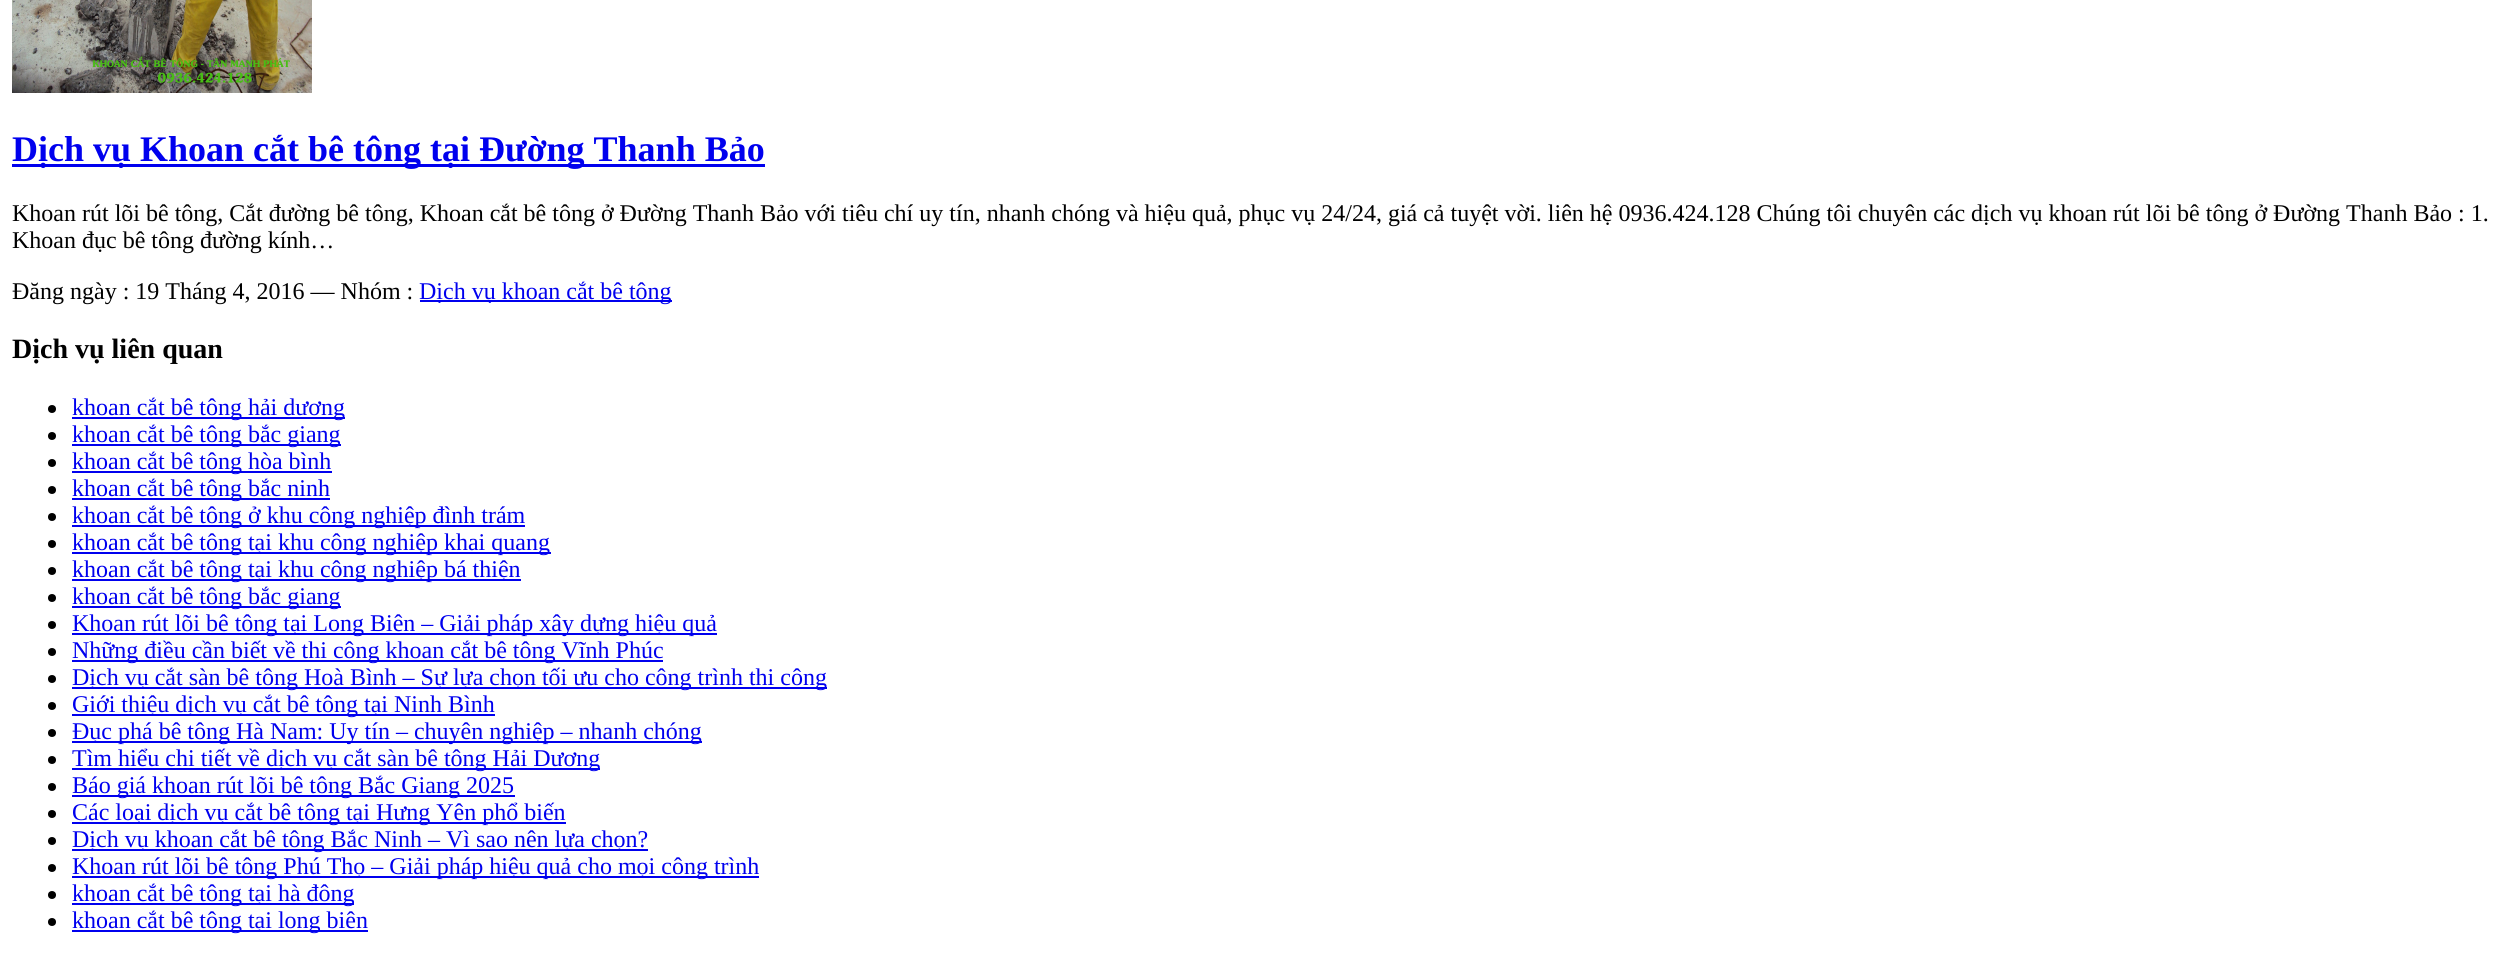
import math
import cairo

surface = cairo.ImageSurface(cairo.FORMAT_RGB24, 2510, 958)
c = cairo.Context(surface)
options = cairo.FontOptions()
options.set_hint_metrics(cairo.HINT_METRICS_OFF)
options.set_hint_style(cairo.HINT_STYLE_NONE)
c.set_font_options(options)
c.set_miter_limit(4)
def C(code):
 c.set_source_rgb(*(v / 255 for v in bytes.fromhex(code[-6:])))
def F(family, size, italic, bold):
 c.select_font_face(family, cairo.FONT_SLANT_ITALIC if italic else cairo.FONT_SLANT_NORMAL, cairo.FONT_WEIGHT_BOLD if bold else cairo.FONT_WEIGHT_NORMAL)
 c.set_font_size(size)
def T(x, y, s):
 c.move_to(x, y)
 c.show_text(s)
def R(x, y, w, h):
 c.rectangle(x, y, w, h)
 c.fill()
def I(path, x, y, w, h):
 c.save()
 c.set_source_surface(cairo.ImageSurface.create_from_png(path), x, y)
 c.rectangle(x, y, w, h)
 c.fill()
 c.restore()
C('ffffff')
c.paint()
I('1.png',12,0,300,93)
C('0000ee')
R(12,164,753,3)
F('Liberation Serif',36,0,1)
T(12,161,'Dịch vụ Khoan cắt bê tông tại Đường Thanh Bảo')
F('Liberation Serif',24,0,0)
C('000000')
T(12,221,'Khoan rút lõi bê tông, Cắt đường bê tông, Khoan cắt bê tông ở Đường Thanh Bảo với tiêu chí uy tín, nhanh chóng và hiệu quả, phục vụ 24/24, giá cả tuyệt vời. liên hệ 0936.424.128 Chúng tôi chuyên các dịch vụ khoan rút lõi bê tông ở Đường Thanh Bảo : 1.')
T(12,248,'Khoan đục bê tông đường kính…')
T(12,299,'Đăng ngày : 19 Tháng 4, 2016 — Nhóm :')
C('0000ee')
R(420,300,252,2)
T(419,299,'Dịch vụ khoan cắt bê tông')
F('Liberation Serif',28,0,1)
C('000000')
T(12,358,'Dịch vụ liên quan')
c.new_path()
c.arc(52,409,4,0,2 * math.pi)
c.fill()
C('0000ee')
R(72,417,273,2)
F('Liberation Serif',24,0,0)
T(72,415,'khoan cắt bê tông hải dương')
C('000000')
c.new_path()
c.arc(52,436,4,0,2 * math.pi)
c.fill()
C('0000ee')
R(72,444,269,2)
T(72,442,'khoan cắt bê tông bắc giang')
C('000000')
c.new_path()
c.arc(52,463,4,0,2 * math.pi)
c.fill()
C('0000ee')
R(72,471,260,2)
T(72,469,'khoan cắt bê tông hòa bình')
C('000000')
c.new_path()
c.arc(52,490,4,0,2 * math.pi)
c.fill()
C('0000ee')
R(72,498,258,2)
T(72,496,'khoan cắt bê tông bắc ninh')
C('000000')
c.new_path()
c.arc(52,517,4,0,2 * math.pi)
c.fill()
C('0000ee')
R(72,525,453,2)
T(72,523,'khoan cắt bê tông ở khu công nghiệp đình trám')
C('000000')
c.new_path()
c.arc(52,544,4,0,2 * math.pi)
c.fill()
C('0000ee')
R(72,552,479,2)
T(72,550,'khoan cắt bê tông tại khu công nghiệp khai quang')
C('000000')
c.new_path()
c.arc(52,571,4,0,2 * math.pi)
c.fill()
C('0000ee')
R(72,579,449,2)
T(72,577,'khoan cắt bê tông tại khu công nghiệp bá thiện')
C('000000')
c.new_path()
c.arc(52,598,4,0,2 * math.pi)
c.fill()
C('0000ee')
R(72,606,269,2)
T(72,604,'khoan cắt bê tông bắc giang')
C('000000')
c.new_path()
c.arc(52,625,4,0,2 * math.pi)
c.fill()
C('0000ee')
R(72,633,645,2)
T(72,631,'Khoan rút lõi bê tông tại Long Biên – Giải pháp xây dựng hiệu quả')
C('000000')
c.new_path()
c.arc(52,652,4,0,2 * math.pi)
c.fill()
C('0000ee')
R(72,660,591,2)
T(72,658,'Những điều cần biết về thi công khoan cắt bê tông Vĩnh Phúc')
C('000000')
c.new_path()
c.arc(52,679,4,0,2 * math.pi)
c.fill()
C('0000ee')
R(72,687,755,2)
T(72,685,'Dịch vụ cắt sàn bê tông Hoà Bình – Sự lựa chọn tối ưu cho công trình thi công')
C('000000')
c.new_path()
c.arc(52,706,4,0,2 * math.pi)
c.fill()
C('0000ee')
R(72,714,423,2)
T(72,712,'Giới thiệu dịch vụ cắt bê tông tại Ninh Bình')
C('000000')
c.new_path()
c.arc(52,733,4,0,2 * math.pi)
c.fill()
C('0000ee')
R(72,741,630,2)
T(72,739,'Đục phá bê tông Hà Nam: Uy tín – chuyên nghiệp – nhanh chóng')
C('000000')
c.new_path()
c.arc(52,760,4,0,2 * math.pi)
c.fill()
C('0000ee')
R(72,768,528,2)
T(72,766,'Tìm hiểu chi tiết về dịch vụ cắt sàn bê tông Hải Dương')
C('000000')
c.new_path()
c.arc(52,787,4,0,2 * math.pi)
c.fill()
C('0000ee')
R(72,795,443,2)
T(72,793,'Báo giá khoan rút lõi bê tông Bắc Giang 2025')
C('000000')
c.new_path()
c.arc(52,814,4,0,2 * math.pi)
c.fill()
C('0000ee')
R(72,822,494,2)
T(72,820,'Các loại dịch vụ cắt bê tông tại Hưng Yên phổ biến')
C('000000')
c.new_path()
c.arc(52,841,4,0,2 * math.pi)
c.fill()
C('0000ee')
R(72,849,576,2)
T(72,847,'Dịch vụ khoan cắt bê tông Bắc Ninh – Vì sao nên lựa chọn?')
C('000000')
c.new_path()
c.arc(52,868,4,0,2 * math.pi)
c.fill()
C('0000ee')
R(72,876,687,2)
T(72,874,'Khoan rút lõi bê tông Phú Thọ – Giải pháp hiệu quả cho mọi công trình')
C('000000')
c.new_path()
c.arc(52,895,4,0,2 * math.pi)
c.fill()
C('0000ee')
R(72,903,282,2)
T(72,901,'khoan cắt bê tông tại hà đông')
C('000000')
c.new_path()
c.arc(52,922,4,0,2 * math.pi)
c.fill()
C('0000ee')
R(72,930,296,2)
T(72,928,'khoan cắt bê tông tại long biên')
surface.write_to_png('o.png')
